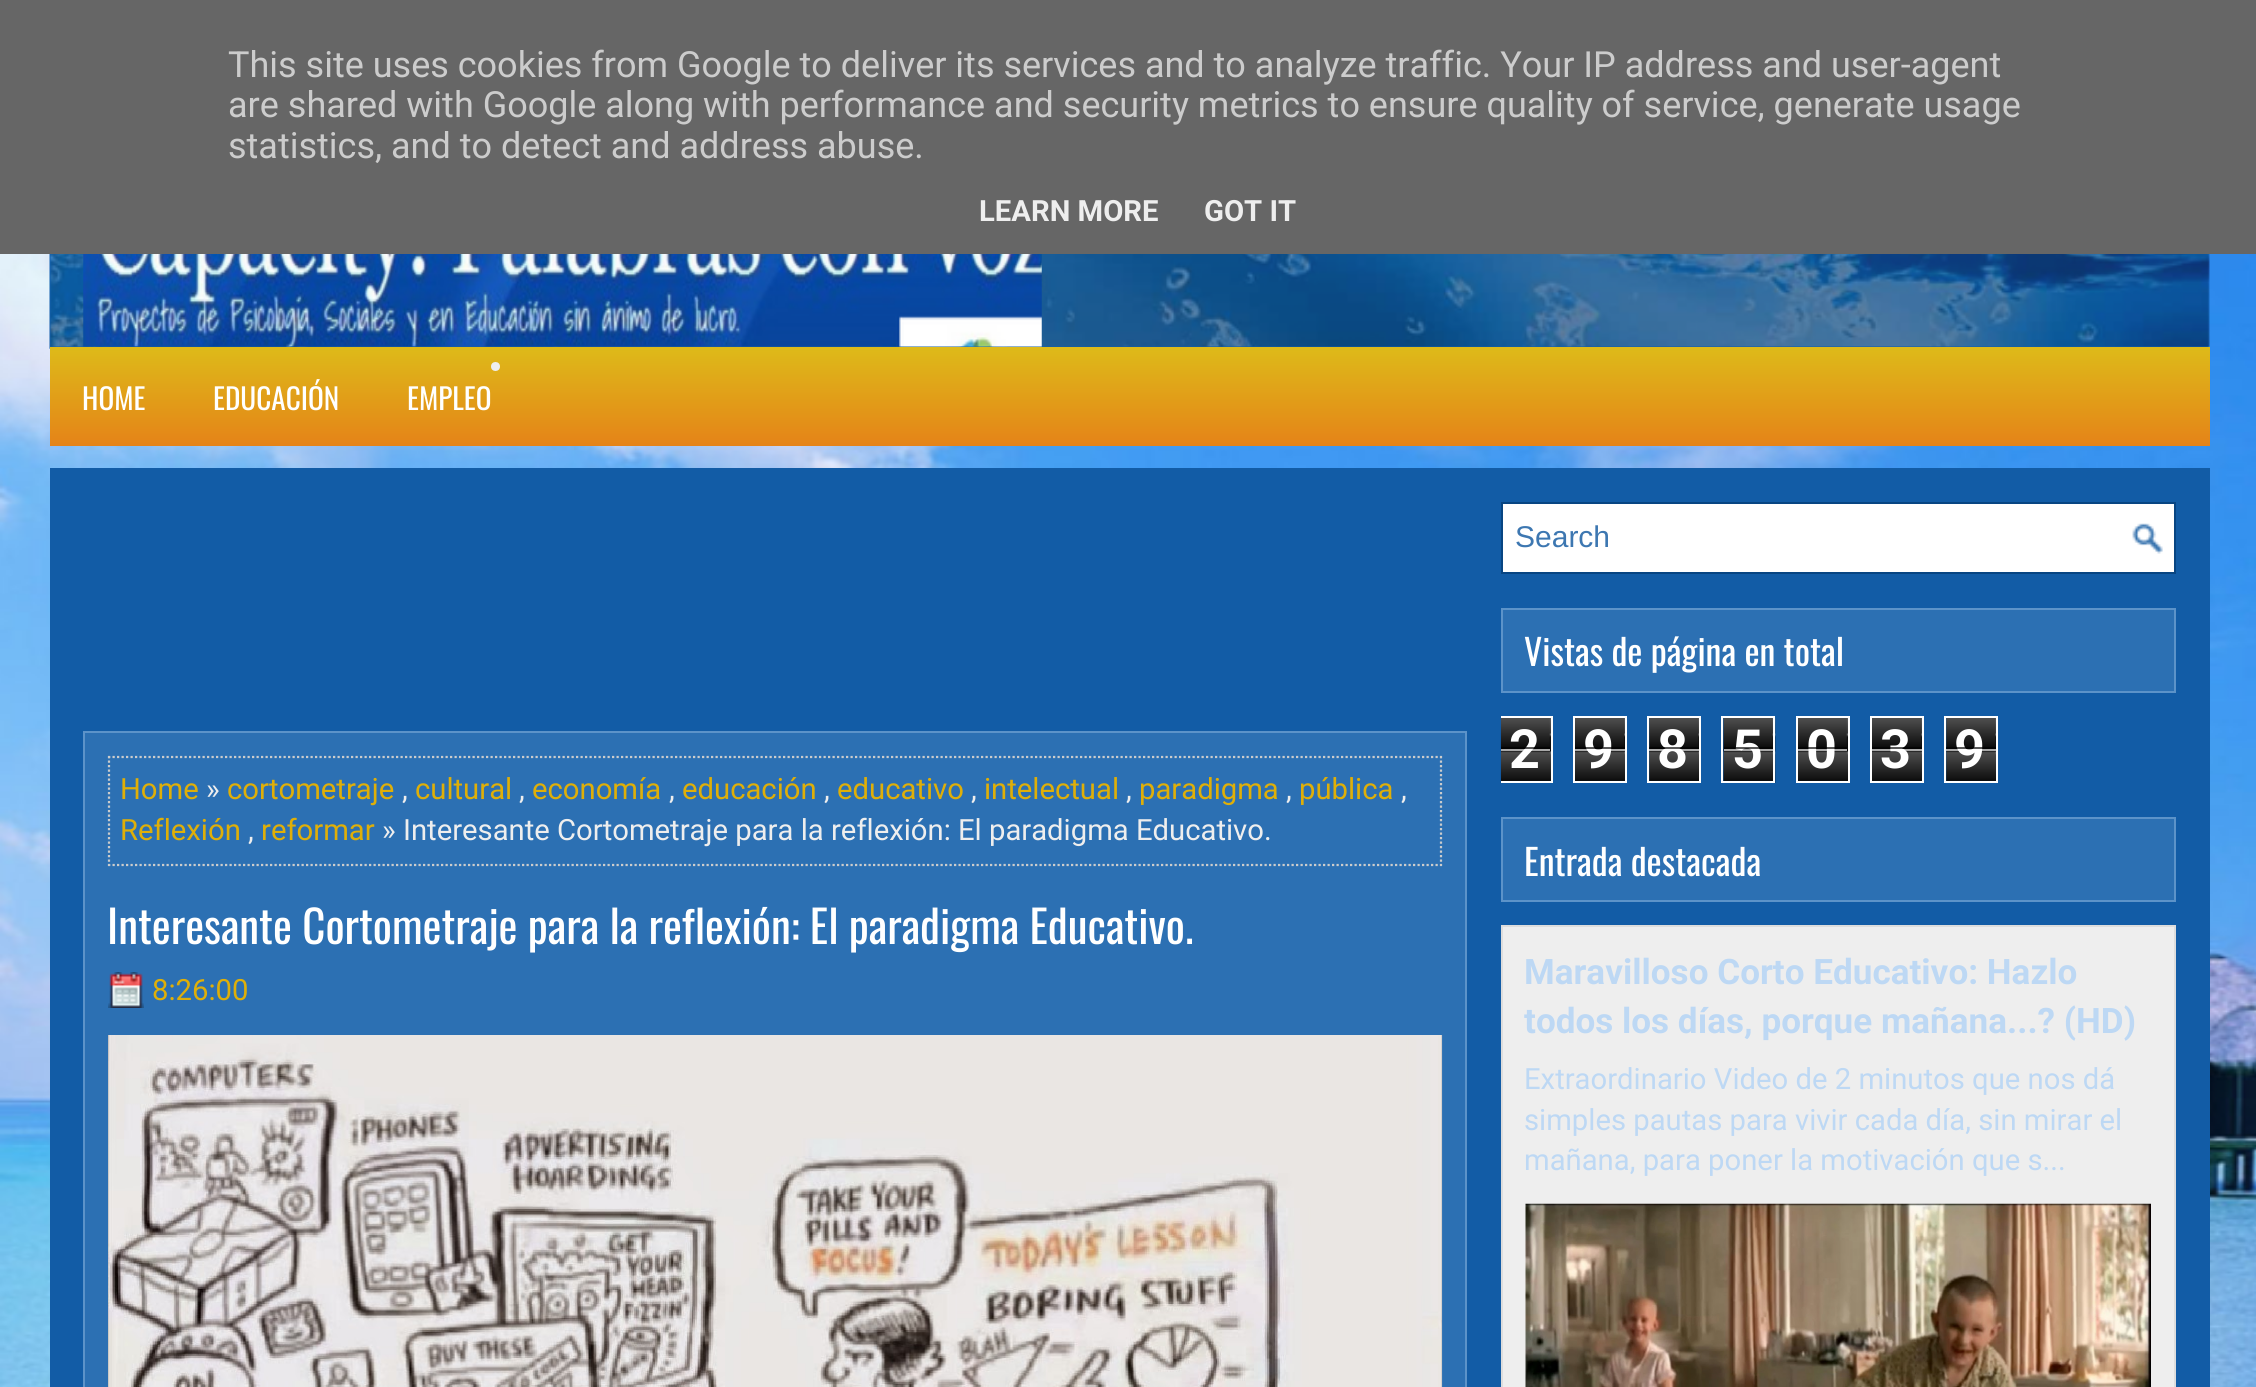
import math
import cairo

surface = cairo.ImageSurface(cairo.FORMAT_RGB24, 2256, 1387)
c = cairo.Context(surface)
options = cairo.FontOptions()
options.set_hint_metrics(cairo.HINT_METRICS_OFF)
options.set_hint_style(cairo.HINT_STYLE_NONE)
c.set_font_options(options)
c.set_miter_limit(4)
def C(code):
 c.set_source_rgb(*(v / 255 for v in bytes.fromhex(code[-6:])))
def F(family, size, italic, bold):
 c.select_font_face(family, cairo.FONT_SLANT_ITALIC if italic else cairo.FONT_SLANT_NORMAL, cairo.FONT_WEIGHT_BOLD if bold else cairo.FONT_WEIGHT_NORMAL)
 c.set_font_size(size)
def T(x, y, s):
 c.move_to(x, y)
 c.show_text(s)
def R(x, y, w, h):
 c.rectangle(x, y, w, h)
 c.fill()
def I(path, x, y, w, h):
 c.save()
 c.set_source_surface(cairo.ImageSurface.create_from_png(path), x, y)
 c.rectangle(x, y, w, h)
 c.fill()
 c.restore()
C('ffffff')
c.paint()
I('1.png',0,254,2256,1133)
C('666666')
R(0,0,2256,254)
F('Roboto',36,0,0)
C('cccccc')
T(228,77,'This site uses cookies from Google to deliver its services and to analyze traffic. Your IP address and user-agent')
T(228,117,'are shared with Google along with performance and security metrics to ensure quality of service, generate usage')
T(228,158,'statistics, and to detect and address abuse.')
F('Roboto',29.25,0,1)
C('eeeeee')
T(979,221,'LEARN MORE')
T(1204,221,'GOT IT')
I('2.png',49,254,2161,95)
I('3.png',83,254,959,93)
gradient = cairo.LinearGradient(1130,346,1130,446)
gradient.add_color_stop_rgba(0,0.867,0.733,0.098,1)
gradient.add_color_stop_rgba(1,0.898,0.514,0.094,1)
c.set_source(gradient)
R(50,347,2160,99)
C('eeeeee')
c.arc(495.5,366.5,4.5,0,2 * math.pi)
c.fill()
F('Oswald',29.25,0,0)
C('ffffff')
T(82,410,'HOME')
T(213,410,'EDUCACIÓN')
T(407,410,'EMPLEO')
C('125ca6')
R(50,468,2160,919)
C('2c70b3')
c.rectangle(84,732,1382,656)
c.fill_preserve()
C('5c93c9')
c.stroke()
c.new_path()
c.move_to(108,757)
c.line_to(1442,757)
C('cccccc')
c.set_line_width(2.2)
c.set_dash([2.25,2.25])
c.stroke()
c.new_path()
c.move_to(1441,756)
c.line_to(1441,866)
c.stroke()
c.new_path()
c.move_to(108,865)
c.line_to(1442,865)
c.stroke()
c.new_path()
c.move_to(109,756)
c.line_to(109,866)
c.stroke()
F('Roboto',29.25,0,0)
C('dfaf08')
T(120,799,'Home')
C('eeeeee')
T(206,799,'»')
C('dfaf08')
T(227,799,'cortometraje')
T(415,799,'cultural')
T(532,799,'economía')
T(682,799,'educación')
T(837,799,'educativo')
T(984,799,'intelectual')
T(1139,799,'paradigma')
T(1299,799,'pública')
C('eeeeee')
T(402,799,',')
T(519,799,',')
T(669,799,',')
T(824,799,',')
T(971,799,',')
T(1126,799,',')
T(1286,799,',')
T(1401,799,',')
C('dfaf08')
T(120,840,'Reflexión')
C('eeeeee')
T(248,840,',')
C('dfaf08')
T(261,840,'reformar')
C('eeeeee')
T(382,840,'» Interesante Cortometraje para la reflexión: El paradigma Educativo.')
F('Oswald',45,0,0)
C('ffffff')
T(107,944,'Interesante Cortometraje para la reflexión: El paradigma Educativo.')
I('4.png',108,972,36,36)
F('Roboto',29.25,0,0)
C('dfaf08')
T(152,1000,'8:26:00')
I('5.png',108,1035,1335,352)
C('ffffff')
R(1503,504,671,68)
I('6.png',2132,523,31,31)
c.rectangle(1502,503,673,70)
C('084582')
c.set_line_width(2)
c.set_dash([])
c.stroke()
F('Liberation Sans',30,0,0)
C('3d77b1')
T(1515,547,'Search')
C('2c70b3')
c.rectangle(1502,609,673,83)
c.fill_preserve()
C('5c93c9')
c.stroke()
F('Oswald',36,0,0)
C('ffffff')
T(1524,666,'Vistas de página en total')
I('7.png',1500,718,51,65)
c.save()
c.rectangle(1501,502,675,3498)
c.clip()
c.rectangle(1500,717,52,65)
c.stroke()
c.restore()
F('Roboto',54,0,1)
T(1509,768,'2')
c.set_source_rgba(0,0,0,0.65)
R(1501,747,49,2)
c.set_source_rgba(1,1,1,0.65)
R(1501,749,49,2)
I('8.png',1575,718,50,63)
c.rectangle(1574,717,52,65)
C('ffffff')
c.stroke()
T(1583,768,'9')
c.set_source_rgba(0,0,0,0.65)
R(1575,747,50,2)
c.set_source_rgba(1,1,1,0.65)
R(1575,749,50,2)
I('9.png',1649,718,50,63)
c.rectangle(1648,717,52,65)
C('ffffff')
c.stroke()
T(1657,768,'8')
c.set_source_rgba(0,0,0,0.65)
R(1649,747,50,2)
c.set_source_rgba(1,1,1,0.65)
R(1649,749,50,2)
I('10.png',1723,717,53,66)
c.rectangle(1722,717,52,65)
C('ffffff')
c.stroke()
T(1732,768,'5')
c.set_source_rgba(0,0,0,0.65)
R(1724,747,49,2)
c.set_source_rgba(1,1,1,0.65)
R(1724,749,49,2)
I('11.png',1798,718,50,63)
c.rectangle(1797,717,52,65)
C('ffffff')
c.stroke()
T(1806,768,'0')
c.set_source_rgba(0,0,0,0.65)
R(1798,747,49,2)
c.set_source_rgba(1,1,1,0.65)
R(1798,749,49,2)
I('12.png',1872,718,50,63)
c.rectangle(1871,717,52,65)
C('ffffff')
c.stroke()
T(1880,768,'3')
c.set_source_rgba(0,0,0,0.65)
R(1872,747,50,2)
c.set_source_rgba(1,1,1,0.65)
R(1872,749,50,2)
I('9.png',1946,718,50,63)
c.rectangle(1945,717,52,65)
C('ffffff')
c.stroke()
T(1954,768,'9')
c.set_source_rgba(0,0,0,0.65)
R(1946,747,50,2)
c.set_source_rgba(1,1,1,0.65)
R(1946,749,50,2)
C('2c70b3')
c.rectangle(1502,818,673,83)
c.fill_preserve()
C('5c93c9')
c.stroke()
F('Oswald',36,0,0)
C('ffffff')
T(1524,876,'Entrada destacada')
C('eeeeee')
c.rectangle(1502,926,673,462)
c.fill_preserve()
C('dddddd')
c.stroke()
F('Roboto',35.1,0,1)
C('bdd8f4')
T(1524,984,'Maravilloso Corto Educativo: Hazlo')
T(1524,1033,'todos los días, porque mañana...? (HD)')
F('Roboto',29.25,0,0)
T(1524,1089,'Extraordinario Video de 2 minutos que nos dá')
T(1524,1130,'simples pautas para vivir cada día, sin mirar el')
T(1524,1170,'mañana, para poner la motivación que s...')
I('13.png',1525,1203,626,184)
surface.write_to_png('o.png')
